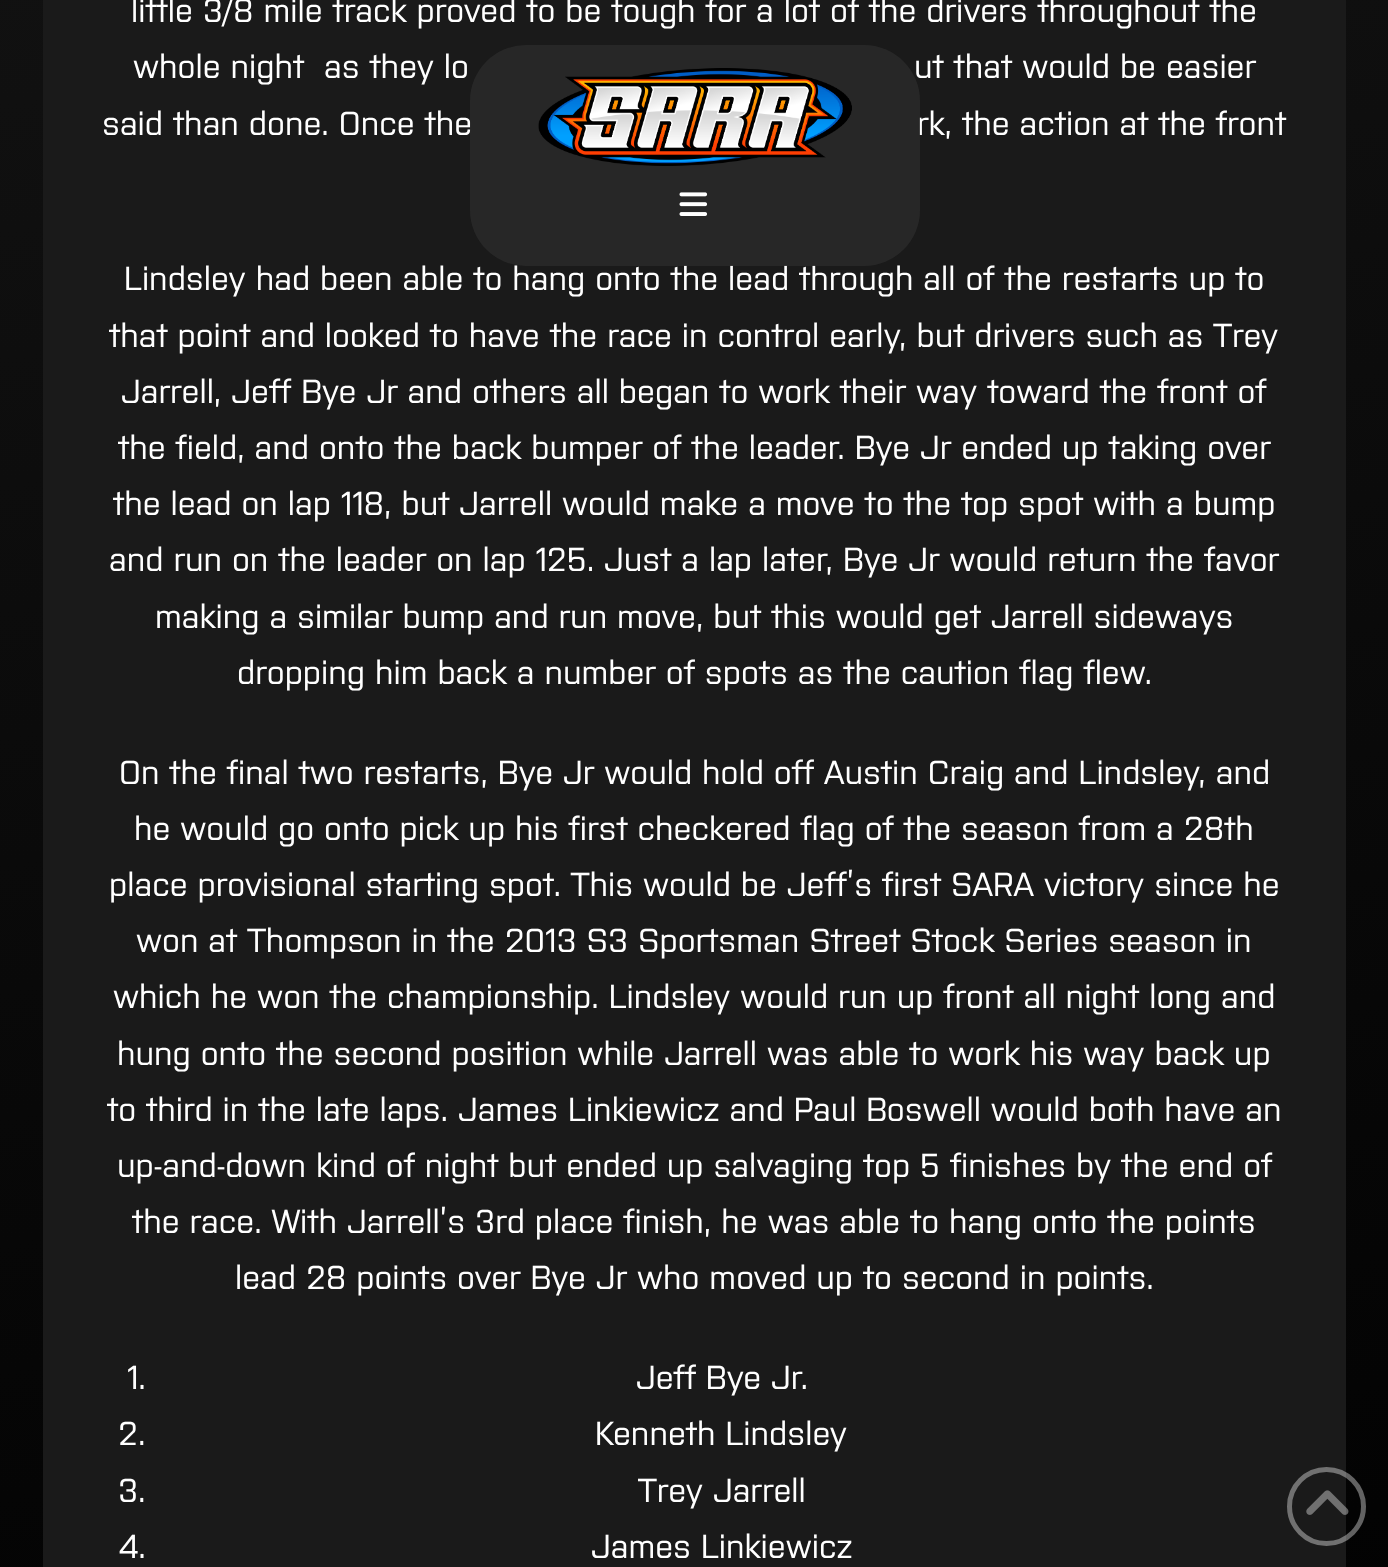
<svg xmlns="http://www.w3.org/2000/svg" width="1388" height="1567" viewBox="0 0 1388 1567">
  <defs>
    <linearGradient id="g1" gradientUnits="userSpaceOnUse" x1="1194" y1="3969" x2="194" y2="-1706"><stop offset="0.35" stop-color="#000000"/><stop offset="1" stop-color="#1e1e1e"/></linearGradient>
  </defs>
  <rect width="100%" height="100%" fill="#ffffff"/>
  <rect x="0" y="0" width="1388" height="1567" fill="url(#g1)"/>
  <rect x="43" y="0" width="1303" height="1567" fill="#1a1a1a"/>
  <text x="131" y="22" font-family="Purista" font-size="33.05" fill="#ffffff">little 3/8 mile track proved to be tough for a lot of the drivers throughout the</text>
  <text x="133" y="78" font-family="Purista" font-size="33.05" fill="#ffffff" xml:space="preserve">whole night  as they lo</text>
  <text x="914" y="78" font-family="Purista" font-size="33.05" fill="#ffffff">ut that would be easier</text>
  <text x="102" y="135" font-family="Purista" font-size="33.05" fill="#ffffff">said than done. Once the</text>
  <text x="917" y="135" font-family="Purista" font-size="33.05" fill="#ffffff">rk, the action at the front</text>
  <text x="124" y="290" font-family="Purista" font-size="33.05" fill="#ffffff">Lindsley had been able to hang onto the lead through all of the restarts up to</text>
  <text x="109" y="347" font-family="Purista" font-size="33.05" fill="#ffffff">that point and looked to have the race in control early, but drivers such as Trey</text>
  <text x="121" y="403" font-family="Purista" font-size="33.05" fill="#ffffff">Jarrell, Jeff Bye Jr and others all began to work their way toward the front of</text>
  <text x="118" y="459" font-family="Purista" font-size="33.05" fill="#ffffff">the field, and onto the back bumper of the leader. Bye Jr ended up taking over</text>
  <text x="113" y="515" font-family="Purista" font-size="33.05" fill="#ffffff">the lead on lap 118, but Jarrell would make a move to the top spot with a bump</text>
  <text x="109" y="571" font-family="Purista" font-size="33.05" fill="#ffffff">and run on the leader on lap 125. Just a lap later, Bye Jr would return the favor</text>
  <text x="155" y="628" font-family="Purista" font-size="33.05" fill="#ffffff">making a similar bump and run move, but this would get Jarrell sideways</text>
  <text x="237" y="684" font-family="Purista" font-size="33.05" fill="#ffffff">dropping him back a number of spots as the caution flag flew.</text>
  <text x="119" y="784" font-family="Purista" font-size="33.05" fill="#ffffff">On the final two restarts, Bye Jr would hold off Austin Craig and Lindsley, and</text>
  <text x="134" y="840" font-family="Purista" font-size="33.05" fill="#ffffff">he would go onto pick up his first checkered flag of the season from a 28th</text>
  <text x="109" y="896" font-family="Purista" font-size="33.05" fill="#ffffff">place provisional starting spot. This would be Jeff’s first SARA victory since he</text>
  <text x="136" y="952" font-family="Purista" font-size="33.05" fill="#ffffff">won at Thompson in the 2013 S3 Sportsman Street Stock Series season in</text>
  <text x="113" y="1008" font-family="Purista" font-size="33.05" fill="#ffffff">which he won the championship. Lindsley would run up front all night long and</text>
  <text x="117" y="1065" font-family="Purista" font-size="33.05" fill="#ffffff">hung onto the second position while Jarrell was able to work his way back up</text>
  <text x="107" y="1121" font-family="Purista" font-size="33.05" fill="#ffffff">to third in the late laps. James Linkiewicz and Paul Boswell would both have an</text>
  <text x="117" y="1177" font-family="Purista" font-size="33.05" fill="#ffffff">up-and-down kind of night but ended up salvaging top 5 finishes by the end of</text>
  <text x="132" y="1233" font-family="Purista" font-size="33.05" fill="#ffffff">the race. With Jarrell’s 3rd place finish, he was able to hang onto the points</text>
  <text x="235" y="1289" font-family="Purista" font-size="33.05" fill="#ffffff">lead 28 points over Bye Jr who moved up to second in points.</text>
  <text x="127" y="1389" font-family="Purista" font-size="33.05" fill="#ffffff">1.</text>
  <text x="636" y="1389" font-family="Purista" font-size="33.05" fill="#ffffff">Jeff Bye Jr.</text>
  <text x="118" y="1445" font-family="Purista" font-size="33.05" fill="#ffffff">2.</text>
  <text x="595" y="1445" font-family="Purista" font-size="33.05" fill="#ffffff">Kenneth Lindsley</text>
  <text x="118" y="1502" font-family="Purista" font-size="33.05" fill="#ffffff">3.</text>
  <text x="638" y="1502" font-family="Purista" font-size="33.05" fill="#ffffff">Trey Jarrell</text>
  <text x="119" y="1558" font-family="Purista" font-size="33.05" fill="#ffffff">4.</text>
  <text x="591" y="1558" font-family="Purista" font-size="33.05" fill="#ffffff">James Linkiewicz</text>
  <rect x="470" y="45" width="450" height="221" rx="56" fill="#2a2a2a" fill-opacity="0.85"/>
  <image x="538" y="68" width="314" height="98" href="img1.png"/>
  <image x="679" y="192" width="29" height="24" href="img2.png"/>
  <circle cx="1326.5" cy="1506.5" r="37" fill="none" stroke="#ffffff" stroke-opacity="0.38" stroke-width="5"/>
  <image x="1306" y="1490" width="43" height="25" href="img3.png"/>
</svg>
